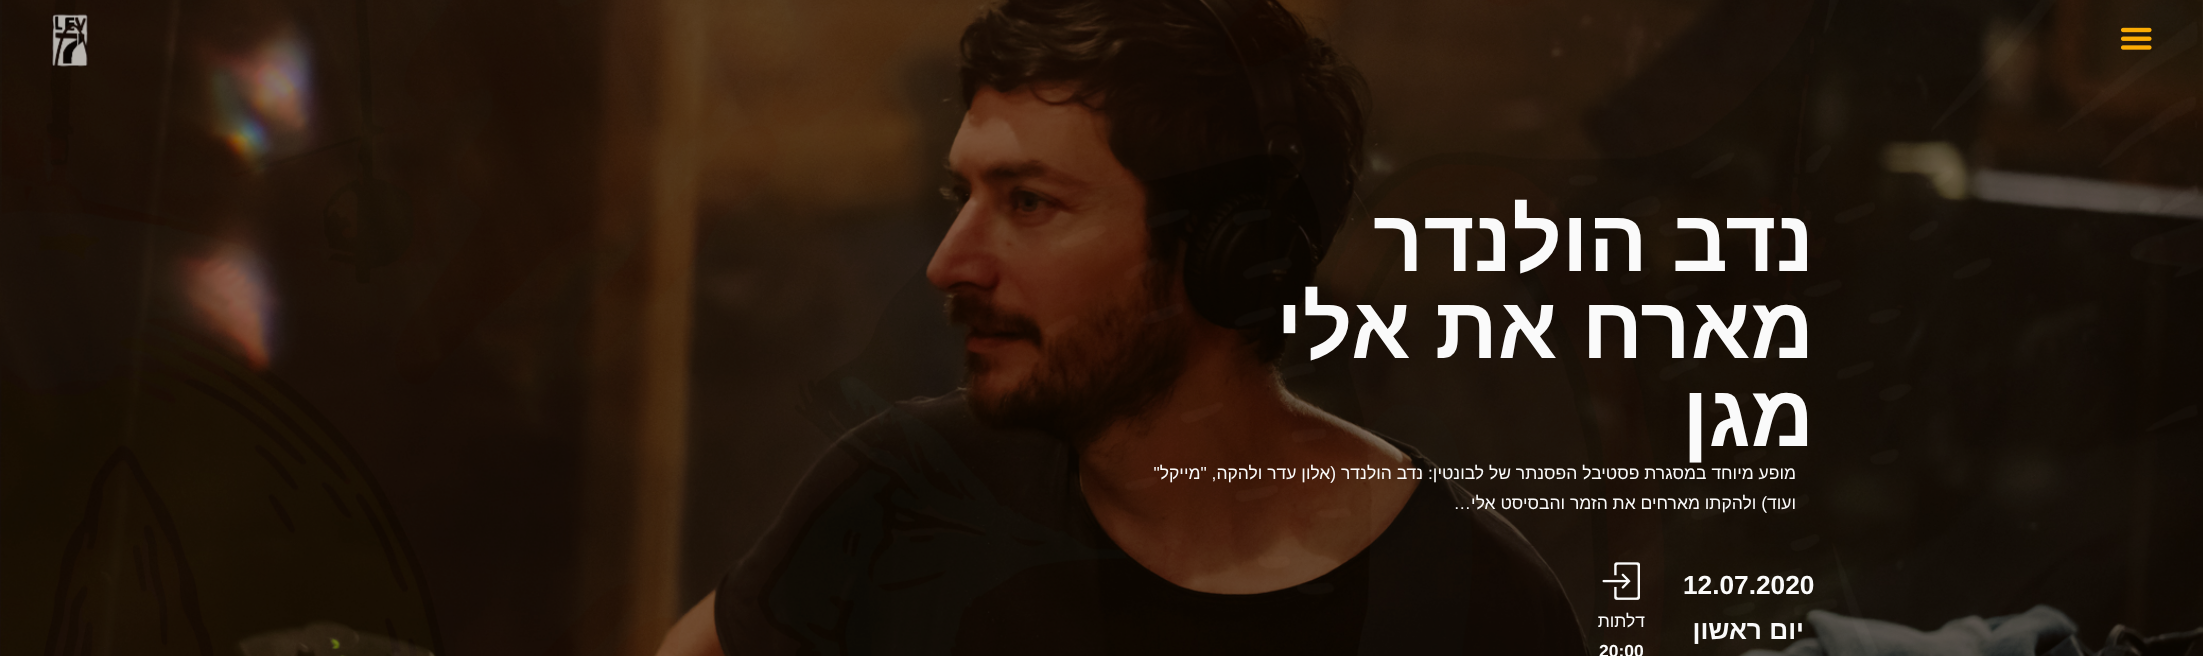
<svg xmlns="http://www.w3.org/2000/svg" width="2203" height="656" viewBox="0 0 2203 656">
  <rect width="100%" height="100%" fill="#ffffff"/>
  <image x="0" y="0" width="2203" height="656" href="img1.png"/>
  <image x="0" y="0" width="2203" height="656" href="img4.png"/>
  <image x="2121" y="27" width="31" height="23" href="img2.png"/>
  <image x="51" y="14" width="38" height="53" href="img3.png"/>
  <text x="1814" y="271" font-family="Liberation Sans" font-size="87.5" font-weight="bold" direction="rtl" fill="#fafafa">נדב הולנדר</text>
  <text x="1814" y="358" font-family="Liberation Sans" font-size="87.5" font-weight="bold" direction="rtl" fill="#fafafa">מארח את אלי</text>
  <text x="1814" y="446" font-family="Liberation Sans" font-size="87.5" font-weight="bold" direction="rtl" fill="#fafafa">מגן</text>
  <text x="1796" y="479" font-family="Liberation Sans" font-size="17.5" direction="rtl" fill="#fafafa">מופע מיוחד במסגרת פסטיבל הפסנתר של לבונטין: נדב הולנדר (אלון עדר ולהקה, "מייקל"</text>
  <text x="1796" y="509" font-family="Liberation Sans" font-size="17.5" direction="rtl" fill="#fafafa">ועוד) ולהקתו מארחים את הזמר והבסיסט אלי…</text>
  <text x="1683" y="594" font-family="Liberation Sans" font-size="26.25" font-weight="bold" fill="#fafafa">12.07.2020</text>
  <text x="1804" y="639" font-family="Liberation Sans" font-size="26.25" font-weight="bold" direction="rtl" fill="#fafafa">יום ראשון</text>
  <image x="1602" y="562" width="38" height="38" href="img5.png"/>
  <text x="1645" y="627" font-family="Liberation Sans" font-size="17.5" direction="rtl" fill="#fafafa">דלתות</text>
  <text x="1599" y="657" font-family="Liberation Sans" font-size="17.5" font-weight="bold" fill="#fafafa">20:00</text>
</svg>
